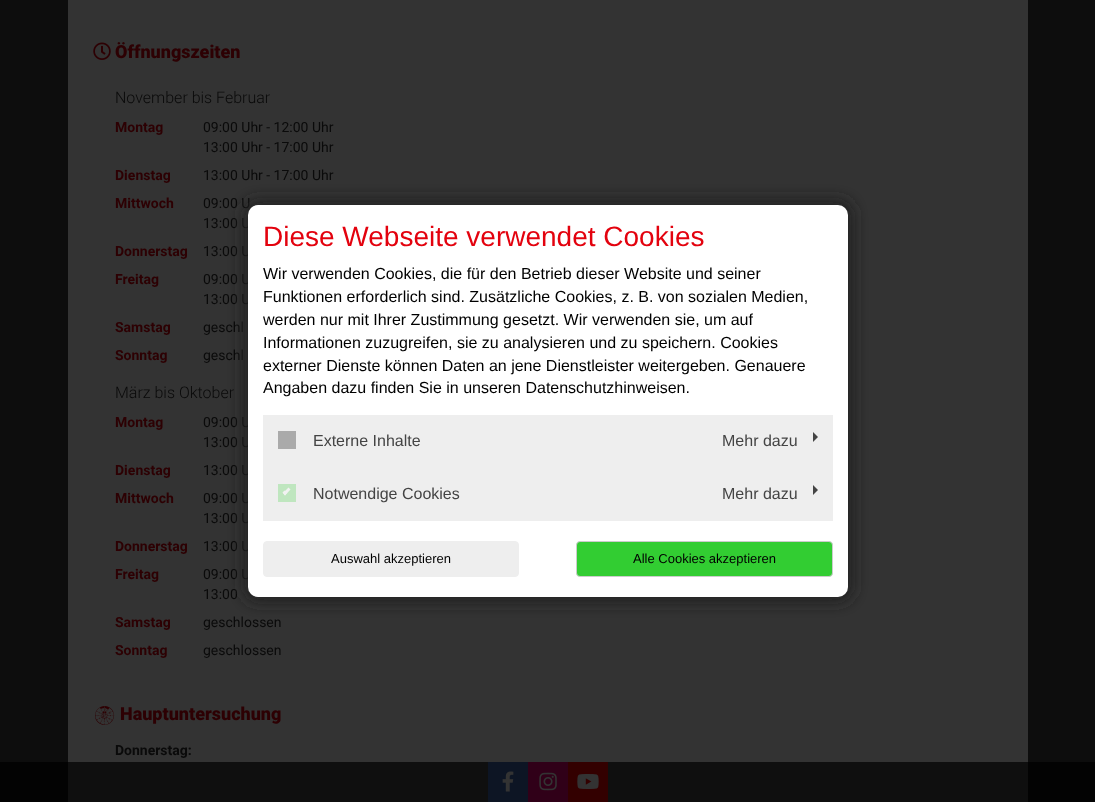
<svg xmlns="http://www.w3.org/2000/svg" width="1095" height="802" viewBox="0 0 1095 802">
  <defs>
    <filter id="blur1" x="-50%" y="-200%" width="200%" height="500%"><feGaussianBlur stdDeviation="7.5"/></filter>
  </defs>
  <rect width="100%" height="100%" fill="#0d0d0d"/>
  <rect x="68" y="0" width="960" height="802" fill="#333333"/>
  <image x="93" y="42" width="18" height="18" href="img1.png"/>
  <text x="115" y="58" font-family="Roboto" font-size="18" font-weight="900" fill="#2d0003">Öffnungszeiten</text>
  <text x="115" y="103" font-family="Roboto" font-size="16" font-weight="300" fill="#0a0a0a">November bis Februar</text>
  <text x="115" y="132" font-family="Roboto" font-size="14" font-weight="bold" fill="#2d0003">Montag</text>
  <text x="203" y="132" font-family="Roboto" font-size="14" fill="#0a0a0a">09:00 Uhr - 12:00 Uhr</text>
  <text x="203" y="152" font-family="Roboto" font-size="14" fill="#0a0a0a">13:00 Uhr - 17:00 Uhr</text>
  <text x="115" y="180" font-family="Roboto" font-size="14" font-weight="bold" fill="#2d0003">Dienstag</text>
  <text x="203" y="180" font-family="Roboto" font-size="14" fill="#0a0a0a">13:00 Uhr - 17:00 Uhr</text>
  <text x="115" y="208" font-family="Roboto" font-size="14" font-weight="bold" fill="#2d0003">Mittwoch</text>
  <text x="203" y="208" font-family="Roboto" font-size="14" fill="#0a0a0a">09:00 U</text>
  <text x="203" y="228" font-family="Roboto" font-size="14" fill="#0a0a0a">13:00 U</text>
  <text x="115" y="256" font-family="Roboto" font-size="14" font-weight="bold" fill="#2d0003">Donnerstag</text>
  <text x="203" y="256" font-family="Roboto" font-size="14" fill="#0a0a0a">13:00 U</text>
  <text x="115" y="284" font-family="Roboto" font-size="14" font-weight="bold" fill="#2d0003">Freitag</text>
  <text x="203" y="284" font-family="Roboto" font-size="14" fill="#0a0a0a">09:00 U</text>
  <text x="203" y="304" font-family="Roboto" font-size="14" fill="#0a0a0a">13:00 U</text>
  <text x="115" y="332" font-family="Roboto" font-size="14" font-weight="bold" fill="#2d0003">Samstag</text>
  <text x="203" y="332" font-family="Roboto" font-size="14" fill="#0a0a0a">geschl</text>
  <text x="115" y="360" font-family="Roboto" font-size="14" font-weight="bold" fill="#2d0003">Sonntag</text>
  <text x="203" y="360" font-family="Roboto" font-size="14" fill="#0a0a0a">geschl</text>
  <text x="115" y="398" font-family="Roboto" font-size="16" font-weight="300" fill="#0a0a0a">März bis Oktober</text>
  <text x="115" y="427" font-family="Roboto" font-size="14" font-weight="bold" fill="#2d0003">Montag</text>
  <text x="203" y="427" font-family="Roboto" font-size="14" fill="#0a0a0a">09:00 U</text>
  <text x="203" y="447" font-family="Roboto" font-size="14" fill="#0a0a0a">13:00 U</text>
  <text x="115" y="475" font-family="Roboto" font-size="14" font-weight="bold" fill="#2d0003">Dienstag</text>
  <text x="203" y="475" font-family="Roboto" font-size="14" fill="#0a0a0a">13:00 U</text>
  <text x="115" y="503" font-family="Roboto" font-size="14" font-weight="bold" fill="#2d0003">Mittwoch</text>
  <text x="203" y="503" font-family="Roboto" font-size="14" fill="#0a0a0a">09:00 U</text>
  <text x="203" y="523" font-family="Roboto" font-size="14" fill="#0a0a0a">13:00 U</text>
  <text x="115" y="551" font-family="Roboto" font-size="14" font-weight="bold" fill="#2d0003">Donnerstag</text>
  <text x="203" y="551" font-family="Roboto" font-size="14" fill="#0a0a0a">13:00 U</text>
  <text x="115" y="579" font-family="Roboto" font-size="14" font-weight="bold" fill="#2d0003">Freitag</text>
  <text x="203" y="579" font-family="Roboto" font-size="14" fill="#0a0a0a">09:00 U</text>
  <text x="203" y="599" font-family="Roboto" font-size="14" fill="#0a0a0a">13:00</text>
  <text x="115" y="627" font-family="Roboto" font-size="14" font-weight="bold" fill="#2d0003">Samstag</text>
  <text x="203" y="627" font-family="Roboto" font-size="14" fill="#0a0a0a">geschlossen</text>
  <text x="115" y="655" font-family="Roboto" font-size="14" font-weight="bold" fill="#2d0003">Sonntag</text>
  <text x="203" y="655" font-family="Roboto" font-size="14" fill="#0a0a0a">geschlossen</text>
  <image x="95" y="706" width="20" height="19" href="img2.png"/>
  <text x="120" y="720" font-family="Roboto" font-size="18" font-weight="900" fill="#2d0003">Hauptuntersuchung</text>
  <text x="115" y="755" font-family="Roboto" font-size="14" font-weight="bold" fill="#0a0a0a">Donnerstag:</text>
  <rect x="0" y="762" width="1095" height="40" fill="#000000" fill-opacity="0.7"/>
  <rect x="488" y="762" width="40" height="40" fill="#0d1524"/>
  <image x="502" y="771" width="12" height="21" href="img3.png"/>
  <rect x="528" y="762" width="40" height="40" fill="#300018"/>
  <image x="539" y="772" width="18" height="19" href="img4.png"/>
  <rect x="568" y="762" width="40" height="40" fill="#330000"/>
  <image x="577" y="774" width="22" height="15" href="img5.png"/>
  <rect x="243" y="200" width="610" height="402" rx="15" fill="#222222" filter="url(#blur1)"/>
  <rect x="248" y="205" width="600" height="392" rx="10" fill="#ffffff"/>
  <text x="263" y="246" font-family="Liberation Sans" font-size="28" fill="#e3020e">Diese Webseite verwendet Cookies</text>
  <text x="263" y="279" font-family="Liberation Sans" font-size="16" fill="#000000">Wir verwenden Cookies, die für den Betrieb dieser Website und seiner</text>
  <text x="263" y="302" font-family="Liberation Sans" font-size="16" fill="#000000">Funktionen erforderlich sind. Zusätzliche Cookies, z. B. von sozialen Medien,</text>
  <text x="263" y="325" font-family="Liberation Sans" font-size="16" fill="#000000">werden nur mit Ihrer Zustimmung gesetzt. Wir verwenden sie, um auf</text>
  <text x="263" y="348" font-family="Liberation Sans" font-size="16" fill="#000000">Informationen zuzugreifen, sie zu analysieren und zu speichern. Cookies</text>
  <text x="263" y="371" font-family="Liberation Sans" font-size="16" fill="#000000">externer Dienste können Daten an jene Dienstleister weitergeben. Genauere</text>
  <text x="263" y="393" font-family="Liberation Sans" font-size="16" fill="#000000">Angaben dazu finden Sie in unseren Datenschutzhinweisen.</text>
  <rect x="263" y="415" width="570" height="106" fill="#eeeeee"/>
  <rect x="278" y="431" width="18" height="18" fill="#aaaaaa"/>
  <text x="313" y="446" font-family="Liberation Sans" font-size="16" fill="#444444">Externe Inhalte</text>
  <text x="722" y="446" font-family="Liberation Sans" font-size="16" fill="#444444">Mehr dazu</text>
  <path d="M813 442V432L818 437Z" fill="#444444"/>
  <rect x="278" y="484" width="18" height="18" fill="#bfe6bf"/>
  <path d="M288.5 487.5L290.5 489.5L285 495.5L283 493Z" fill="#f2f2f2"/>
  <path d="M284.5 490.5L287 493L285 495.5L282.5 492.5Z" fill="#f2f2f2"/>
  <text x="313" y="499" font-family="Liberation Sans" font-size="16" fill="#444444">Notwendige Cookies</text>
  <text x="722" y="499" font-family="Liberation Sans" font-size="16" fill="#444444">Mehr dazu</text>
  <path d="M813 495V485L818 490Z" fill="#444444"/>
  <rect x="263.5" y="541.5" width="255" height="35" rx="3.5" fill="#eeeeee" stroke="#eeeeee"/>
  <text x="331" y="563" font-family="Liberation Sans" font-size="13" fill="#000000">Auswahl akzeptieren</text>
  <rect x="576.5" y="541.5" width="256" height="35" rx="3.5" fill="#32cd32" stroke="#cccccc"/>
  <text x="633" y="563" font-family="Liberation Sans" font-size="13" fill="#000000">Alle Cookies akzeptieren</text>
</svg>
